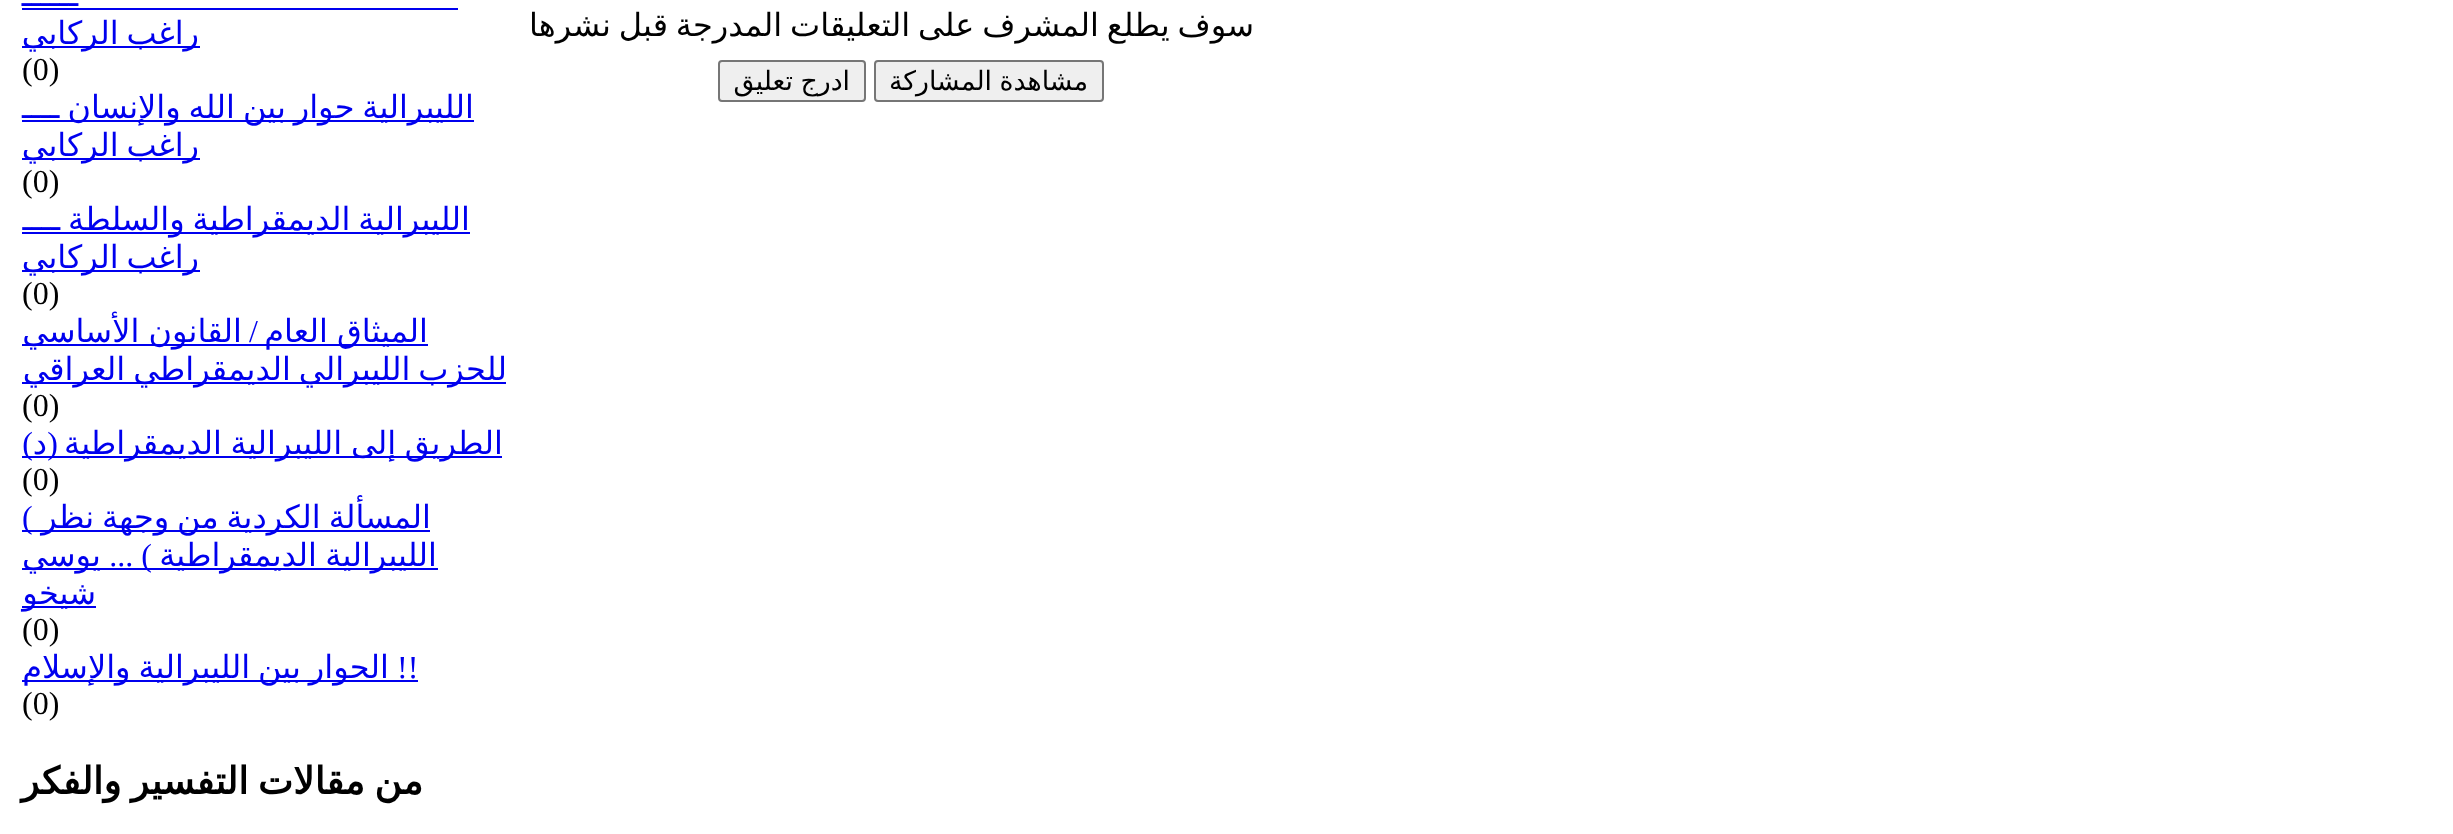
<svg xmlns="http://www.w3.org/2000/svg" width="2453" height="834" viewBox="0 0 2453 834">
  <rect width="100%" height="100%" fill="#ffffff"/>
  <text x="1254" y="36" word-spacing="-2.25" font-family="DejaVu Sans" font-size="32" direction="rtl" fill="#000000">سوف يطلع المشرف على التعليقات المدرجة قبل نشرها</text>
  <rect x="875" y="61" width="228" height="40" rx="3" fill="#efefef" stroke="#767676" stroke-width="2"/>
  <text x="1088" y="90" word-spacing="-1" font-family="DejaVu Sans" font-size="26.75" direction="rtl" fill="#000000">مشاهدة المشاركة</text>
  <rect x="719" y="61" width="146" height="40" rx="3" fill="#efefef" stroke="#767676" stroke-width="2"/>
  <text x="850" y="90" word-spacing="-1" font-family="DejaVu Sans" font-size="26.75" direction="rtl" fill="#000000">ادرج تعليق</text>
  <text x="78" y="6" font-family="DejaVu Sans" font-size="32" direction="rtl" fill="#0000ee">ــــــ</text>
  <rect x="22" y="8" width="436" height="2" fill="#0000ee"/>
  <rect x="22" y="46" width="178" height="2" fill="#0000ee"/>
  <text x="199" y="44" word-spacing="-2.25" font-family="DejaVu Sans" font-size="32" direction="rtl" fill="#0000ee">راغب الركابي</text>
  <text x="22" y="80" font-family="Liberation Serif" font-size="32" fill="#000000">(0)</text>
  <rect x="22" y="120" width="452" height="2" fill="#0000ee"/>
  <text x="474" y="118" word-spacing="-2.25" font-family="DejaVu Sans" font-size="32" direction="rtl" fill="#0000ee">الليبرالية حوار بين الله والإنسان ــــ</text>
  <rect x="22" y="158" width="178" height="2" fill="#0000ee"/>
  <text x="199" y="156" word-spacing="-2.25" font-family="DejaVu Sans" font-size="32" direction="rtl" fill="#0000ee">راغب الركابي</text>
  <text x="22" y="192" font-family="Liberation Serif" font-size="32" fill="#000000">(0)</text>
  <rect x="22" y="232" width="448" height="2" fill="#0000ee"/>
  <text x="470" y="230" word-spacing="-2.25" font-family="DejaVu Sans" font-size="32" direction="rtl" fill="#0000ee">الليبرالية الديمقراطية والسلطة ــــ</text>
  <rect x="22" y="270" width="178" height="2" fill="#0000ee"/>
  <text x="199" y="268" word-spacing="-2.25" font-family="DejaVu Sans" font-size="32" direction="rtl" fill="#0000ee">راغب الركابي</text>
  <text x="22" y="304" font-family="Liberation Serif" font-size="32" fill="#000000">(0)</text>
  <rect x="22" y="344" width="406" height="2" fill="#0000ee"/>
  <text x="428" y="342" word-spacing="-1" font-family="DejaVu Sans" font-size="32" direction="rtl" fill="#0000ee">الميثاق العام</text>
  <text x="258" y="342" font-family="Liberation Serif" font-size="32" direction="rtl" fill="#0000ee">/</text>
  <text x="242" y="342" word-spacing="-1" font-family="DejaVu Sans" font-size="32" direction="rtl" fill="#0000ee">القانون الأساسي</text>
  <rect x="22" y="382" width="484" height="2" fill="#0000ee"/>
  <text x="507" y="380" word-spacing="-2.25" font-family="DejaVu Sans" font-size="32" direction="rtl" fill="#0000ee">للحزب الليبرالي الديمقراطي العراقي</text>
  <text x="22" y="416" font-family="Liberation Serif" font-size="32" fill="#000000">(0)</text>
  <rect x="22" y="456" width="480" height="2" fill="#0000ee"/>
  <text x="503" y="454" word-spacing="-1.5" font-family="DejaVu Sans" font-size="32" direction="rtl" fill="#0000ee">الطريق إلى الليبرالية الديمقراطية</text>
  <text x="58" y="454" font-family="Liberation Serif" font-size="32" direction="rtl" fill="#0000ee">(</text>
  <text x="47" y="454" font-family="DejaVu Sans" font-size="32" direction="rtl" fill="#0000ee">د</text>
  <text x="33" y="454" font-family="Liberation Serif" font-size="32" direction="rtl" fill="#0000ee">)</text>
  <text x="22" y="490" font-family="Liberation Serif" font-size="32" fill="#000000">(0)</text>
  <rect x="22" y="530" width="408" height="2" fill="#0000ee"/>
  <text x="431" y="528" word-spacing="-2.25" font-family="DejaVu Sans" font-size="32" direction="rtl" fill="#0000ee">المسألة الكردية من وجهة نظر</text>
  <text x="22" y="528" font-family="Liberation Serif" font-size="32" fill="#0000ee">(</text>
  <rect x="22" y="568" width="416" height="2" fill="#0000ee"/>
  <text x="437" y="566" font-family="DejaVu Sans" font-size="32" direction="rtl" fill="#0000ee">الليبرالية</text>
  <text x="317" y="566" font-family="DejaVu Sans" font-size="32" direction="rtl" fill="#0000ee">الديمقراطية</text>
  <text x="152" y="566" font-family="Liberation Serif" font-size="32" direction="rtl" fill="#0000ee">) ...</text>
  <text x="101" y="566" font-family="DejaVu Sans" font-size="32" direction="rtl" fill="#0000ee">يوسي</text>
  <rect x="22" y="606" width="74" height="2" fill="#0000ee"/>
  <text x="96" y="604" font-family="DejaVu Sans" font-size="32" direction="rtl" fill="#0000ee">شيخو</text>
  <text x="22" y="640" font-family="Liberation Serif" font-size="32" fill="#000000">(0)</text>
  <text x="397" y="678" font-family="Liberation Serif" font-size="32" fill="#0000ee">!!</text>
  <rect x="22" y="680" width="368" height="2" fill="#0000ee"/>
  <text x="389" y="678" word-spacing="-2.25" font-family="DejaVu Sans" font-size="32" direction="rtl" fill="#0000ee">الحوار بين الليبرالية والإسلام</text>
  <rect x="390" y="680" width="28" height="2" fill="#0000ee"/>
  <text x="22" y="714" font-family="Liberation Serif" font-size="32" fill="#000000">(0)</text>
  <text x="423" y="794" word-spacing="-2.5" font-family="DejaVu Sans" font-size="37.5" font-weight="bold" direction="rtl" fill="#000000">من مقالات التفسير والفكر</text>
</svg>
